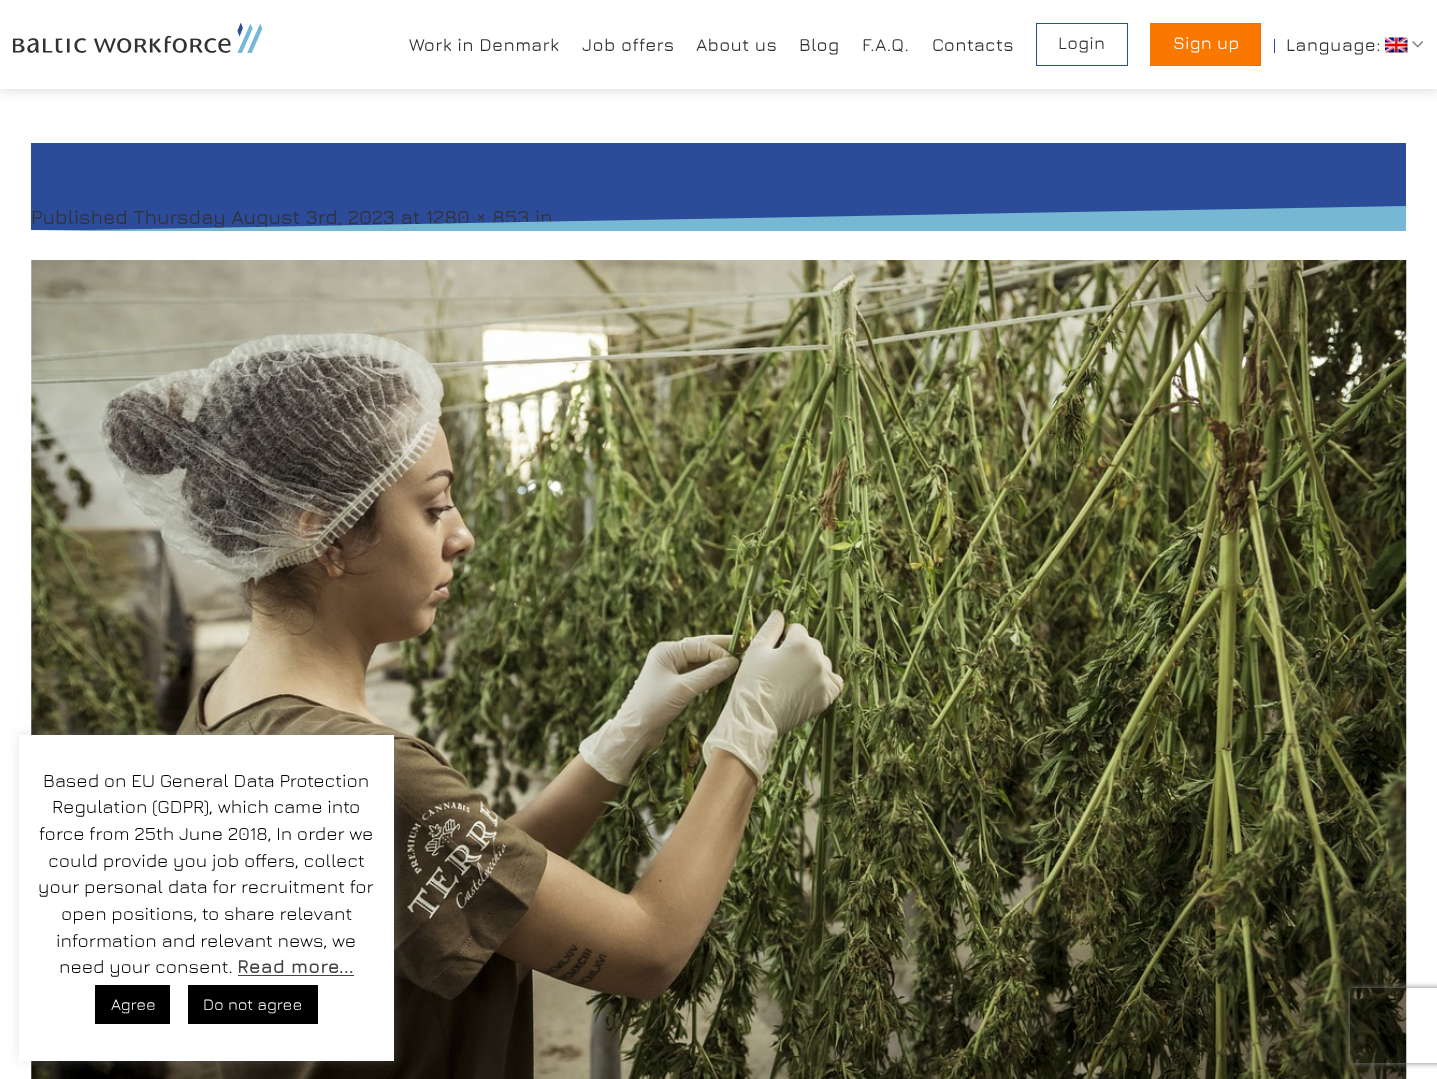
<svg xmlns="http://www.w3.org/2000/svg" width="1437" height="1079" viewBox="0 0 1437 1079">
  <defs>
    <filter id="blur1" x="-50%" y="-200%" width="200%" height="500%"><feGaussianBlur stdDeviation="6"/></filter>
    <clipPath id="clip1"><path d="M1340 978H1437V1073H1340ZM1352.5 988H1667.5C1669 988 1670 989 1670 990.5V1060.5C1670 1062 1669 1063 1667.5 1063H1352.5C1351 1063 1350 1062 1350 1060.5V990.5C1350 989 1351 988 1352.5 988Z" clip-rule="evenodd"/></clipPath>
    <filter id="blur2" x="-50%" y="-200%" width="200%" height="500%"><feGaussianBlur stdDeviation="3"/></filter>
  </defs>
  <rect width="100%" height="100%" fill="#ffffff"/>
  <rect x="1" y="1" width="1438" height="89" fill="#000000" fill-opacity="0.15" filter="url(#blur1)"/>
  <rect x="0" y="0" width="1437" height="89" fill="#ffffff"/>
  <image x="13" y="23" width="250" height="30" href="img1.png"/>
  <text x="409" y="51" font-family="Jura" font-size="18" font-weight="500" letter-spacing="0.4" fill="#313234">Work in Denmark</text>
  <text x="582" y="51" font-family="Jura" font-size="18" font-weight="500" letter-spacing="0.4" fill="#313234">Job offers</text>
  <text x="696" y="51" font-family="Jura" font-size="18" font-weight="500" letter-spacing="0.4" fill="#313234">About us</text>
  <text x="799" y="51" font-family="Jura" font-size="18" font-weight="500" letter-spacing="0.4" fill="#313234">Blog</text>
  <text x="862" y="51" font-family="Jura" font-size="18" font-weight="500" letter-spacing="0.4" fill="#313234">F.A.Q.</text>
  <text x="932" y="51" font-family="Jura" font-size="18" font-weight="500" letter-spacing="0.4" fill="#313234">Contacts</text>
  <rect x="1036.5" y="23.5" width="91" height="42" fill="none" stroke="#2c4b98"/>
  <text x="1058" y="49" font-family="Jura" font-size="17.5" font-weight="500" letter-spacing="0.25" fill="#313234">Login</text>
  <rect x="1150.5" y="23.5" width="110" height="42" fill="#fa7700" stroke="#ee7100"/>
  <text x="1173" y="49" font-family="Jura" font-size="17.5" font-weight="500" letter-spacing="0.25" fill="#ffffff">Sign up</text>
  <rect x="1274" y="39" width="1" height="14" fill="#2c4b98"/>
  <text x="1286" y="51" font-family="Jura" font-size="18" font-weight="500" letter-spacing="0.4" fill="#313234">Language:</text>
  <image x="1385" y="37" width="23" height="16" href="img2.png"/>
  <image x="1412" y="41" width="12" height="7" href="img3.png"/>
  <rect x="31" y="143" width="1375" height="87" fill="#2c4b98"/>
  <text x="31" y="224" font-family="Jura" font-size="20" font-weight="500" fill="#313234">Published Thursday August 3rd, 2023 at 1280 × 853 in</text>
  <path d="M1406 231V206L31 231Z" fill="#76b8d4"/>
  <image x="31" y="260" width="1376" height="819" href="img4.png"/>
  <rect x="19" y="734" width="375" height="326" fill="#acabab" fill-opacity="0.3" filter="url(#blur1)"/>
  <rect x="19" y="735" width="375" height="326" fill="#ffffff"/>
  <text x="43" y="787" font-family="Jura" font-size="18.75" fill="#000000">Based on EU General Data Protection</text>
  <text x="52" y="813" font-family="Jura" font-size="18.75" fill="#000000">Regulation (GDPR), which came into</text>
  <text x="39" y="840" font-family="Jura" font-size="18.75" fill="#000000">force from 25th June 2018, In order we</text>
  <text x="48" y="867" font-family="Jura" font-size="18.75" fill="#000000">could provide you job offers, collect</text>
  <text x="38" y="893" font-family="Jura" font-size="18.75" fill="#000000">your personal data for recruitment for</text>
  <text x="61" y="920" font-family="Jura" font-size="18.75" fill="#000000">open positions, to share relevant</text>
  <text x="56" y="947" font-family="Jura" font-size="18.75" fill="#000000">information and relevant news, we</text>
  <text x="59" y="973" font-family="Jura" font-size="18.75" fill="#000000">need your consent.</text>
  <text x="237" y="973" font-family="Jura" font-size="18.75" font-weight="bold" fill="#444444">Read more...</text>
  <rect x="238" y="975" width="116" height="1" fill="#444444"/>
  <rect x="95" y="985" width="75" height="39" fill="#000000"/>
  <text x="111" y="1010" font-family="Jura" font-size="16.25" fill="#ffffff">Agree</text>
  <rect x="188" y="985" width="130" height="39" fill="#000000"/>
  <text x="203" y="1010" font-family="Jura" font-size="16.25" fill="#ffffff">Do not agree</text>
  <g clip-path="url(#clip1)">
    <rect x="1350" y="988" width="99" height="75" rx="2.5" fill="#808080" filter="url(#blur2)"/>
  </g>
</svg>
